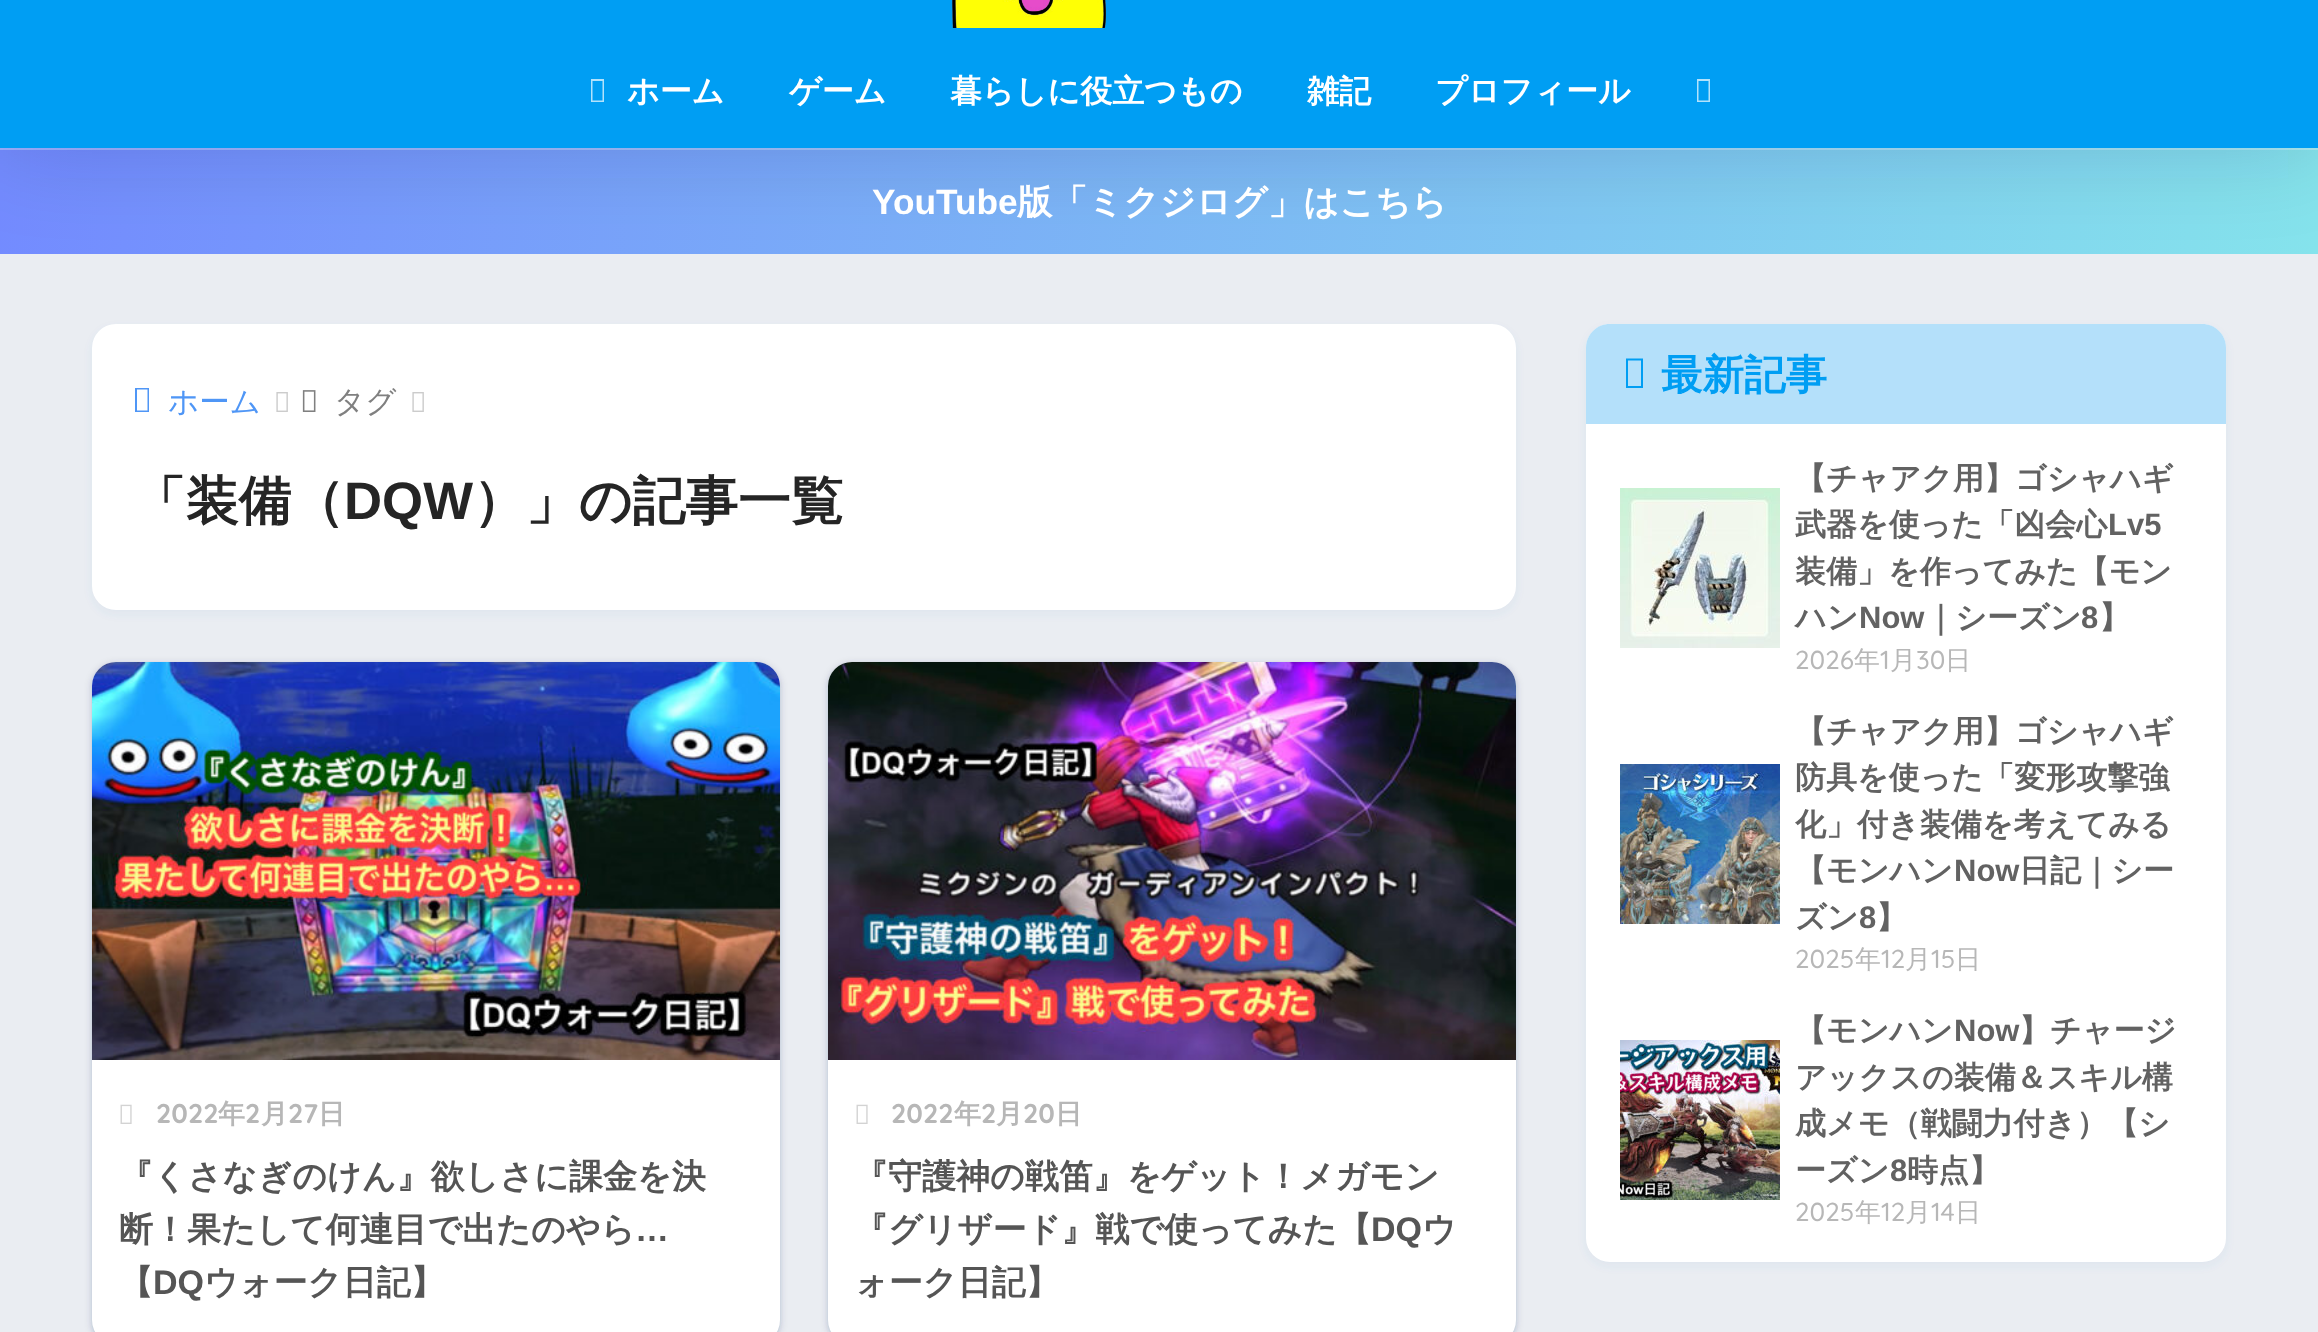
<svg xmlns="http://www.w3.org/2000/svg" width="2318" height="1332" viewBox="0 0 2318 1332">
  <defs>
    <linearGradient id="g1" gradientUnits="userSpaceOnUse" x1="4.3" y1="-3" x2="2314" y2="199"><stop offset="0" stop-color="#9daeff"/><stop offset="1" stop-color="#aaebf2"/></linearGradient>
    <linearGradient id="g2" gradientUnits="userSpaceOnUse" x1="4.3" y1="101" x2="2314" y2="303"><stop offset="0" stop-color="#738bff"/><stop offset="1" stop-color="#85e3ec"/></linearGradient>
    <filter id="blur1" x="-50%" y="-200%" width="200%" height="500%"><feGaussianBlur stdDeviation="45"/></filter>
    <filter id="blur2" x="-50%" y="-200%" width="200%" height="500%"><feGaussianBlur stdDeviation="4"/></filter>
    <filter id="blur3" x="-50%" y="-200%" width="200%" height="500%"><feGaussianBlur stdDeviation="3"/></filter>
    <filter id="blur4" x="-50%" y="-200%" width="200%" height="500%"><feGaussianBlur stdDeviation="2"/></filter>
  </defs>
  <rect width="100%" height="100%" fill="#eaedf2"/>
  <rect x="0" y="148" width="2318" height="2" fill="url(#g1)"/>
  <rect x="0" y="150" width="2318" height="104" fill="url(#g2)"/>
  <rect x="0" y="-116" width="2318" height="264" fill="#000c42" fill-opacity="0.16" filter="url(#blur1)"/>
  <rect x="0" y="0" width="2318" height="148" fill="#009ef3"/>
  <image x="952" y="0" width="154" height="28" href="img1.png"/>
  <path d="M591 102V79H604V102ZM592.5 100.5H602.5V81H592.5Z" fill="#b3e2fb"/>
  <text x="627" y="102" font-family="WenQuanYi Zen Hei" font-size="32" font-weight="bold" fill="#ffffff">ホーム</text>
  <text x="789" y="102" font-family="WenQuanYi Zen Hei" font-size="32" font-weight="bold" fill="#ffffff">ゲーム</text>
  <text x="950" y="102" font-family="WenQuanYi Zen Hei" font-size="32" font-weight="bold" fill="#ffffff">暮らしに役立つもの</text>
  <text x="1307" y="102" font-family="WenQuanYi Zen Hei" font-size="32" font-weight="bold" fill="#ffffff">雑記</text>
  <text x="1435" y="102" font-family="WenQuanYi Zen Hei" font-size="32" font-weight="bold" fill="#ffffff">プロフィール</text>
  <path d="M1697 102V79H1710V102ZM1698.5 100.5H1708.5V81H1698.5Z" fill="#b3e2fb"/>
  <text x="872" y="214" font-family="Liberation Sans" font-size="35.25" font-weight="bold" fill="#ffffff">YouTube</text>
  <text x="1017" y="214" font-family="WenQuanYi Zen Hei" font-size="35.25" font-weight="bold" fill="#ffffff">版「ミクジログ」はこちら</text>
  <rect x="92" y="328" width="1424" height="286" rx="24" fill="#4385bb" fill-opacity="0.07" filter="url(#blur2)"/>
  <rect x="92" y="324" width="1424" height="286" rx="24" fill="#ffffff"/>
  <text x="168" y="412" font-family="WenQuanYi Zen Hei" font-size="30.5" font-weight="500" fill="#4f96f6">ホーム</text>
  <path d="M135 412V388H149V412ZM137 410.5H147.5V389.5H137Z" fill="#4f96f6"/>
  <image x="276" y="392" width="12" height="20" href="img2.png"/>
  <image x="302" y="390" width="14" height="22" href="img3.png"/>
  <text x="334" y="412" font-family="WenQuanYi Zen Hei" font-size="30.5" font-weight="500" fill="#808080">タグ</text>
  <image x="412" y="392" width="12" height="20" href="img2.png"/>
  <text x="133" y="519" font-family="WenQuanYi Zen Hei" font-size="52.75" font-weight="bold" fill="#252525">「装備（</text>
  <text x="344" y="519" font-family="Liberation Sans" font-size="52.75" font-weight="bold" fill="#252525">DQW</text>
  <text x="473" y="519" font-family="WenQuanYi Zen Hei" font-size="52.75" font-weight="bold" fill="#252525">）」の記事一覧</text>
  <rect x="90" y="662" width="692" height="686" rx="26" fill="#182c54" fill-opacity="0.1" filter="url(#blur3)"/>
  <rect x="92" y="664" width="688" height="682" rx="24" fill="#182c54" fill-opacity="0.1" filter="url(#blur4)"/>
  <rect x="92" y="662" width="688" height="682" rx="24" fill="#ffffff"/>
  <image x="92" y="662" width="688" height="398" href="img4.png"/>
  <image x="120" y="1104" width="12" height="20" href="img5.png"/>
  <text x="156" y="1123" font-family="Quicksand" font-size="27" font-weight="bold" fill="#b7b7b7">2022</text>
  <text x="218" y="1123" font-family="WenQuanYi Zen Hei" font-size="27" font-weight="bold" fill="#b7b7b7">年</text>
  <text x="245" y="1123" font-family="Quicksand" font-size="27" font-weight="bold" fill="#b7b7b7">2</text>
  <text x="261" y="1123" font-family="WenQuanYi Zen Hei" font-size="27" font-weight="bold" fill="#b7b7b7">月</text>
  <text x="288" y="1123" font-family="Quicksand" font-size="27" font-weight="bold" fill="#b7b7b7">27</text>
  <text x="318" y="1123" font-family="WenQuanYi Zen Hei" font-size="27" font-weight="bold" fill="#b7b7b7">日</text>
  <text x="119" y="1188" font-family="WenQuanYi Zen Hei" font-size="34" font-weight="bold" fill="#555555">『くさなぎのけん』欲しさに課金を決</text>
  <text x="119" y="1241" font-family="WenQuanYi Zen Hei" font-size="34" font-weight="bold" fill="#555555">断！果たして何連目で出たのやら</text>
  <text x="635" y="1241" font-family="Liberation Sans" font-size="34" font-weight="bold" fill="#555555">…</text>
  <text x="119" y="1294" font-family="WenQuanYi Zen Hei" font-size="34" font-weight="bold" fill="#555555">【</text>
  <text x="153" y="1294" font-family="Liberation Sans" font-size="34" font-weight="bold" fill="#555555">DQ</text>
  <text x="204" y="1294" font-family="WenQuanYi Zen Hei" font-size="34" font-weight="bold" fill="#555555">ウォーク日記】</text>
  <rect x="826" y="662" width="692" height="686" rx="26" fill="#182c54" fill-opacity="0.1" filter="url(#blur3)"/>
  <rect x="828" y="664" width="688" height="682" rx="24" fill="#182c54" fill-opacity="0.1" filter="url(#blur4)"/>
  <rect x="828" y="662" width="688" height="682" rx="24" fill="#ffffff"/>
  <image x="828" y="662" width="688" height="398" href="img6.png"/>
  <image x="856" y="1104" width="12" height="20" href="img5.png"/>
  <text x="891" y="1123" font-family="Quicksand" font-size="27" font-weight="bold" fill="#b7b7b7">2022</text>
  <text x="954" y="1123" font-family="WenQuanYi Zen Hei" font-size="27" font-weight="bold" fill="#b7b7b7">年</text>
  <text x="981" y="1123" font-family="Quicksand" font-size="27" font-weight="bold" fill="#b7b7b7">2</text>
  <text x="996" y="1123" font-family="WenQuanYi Zen Hei" font-size="27" font-weight="bold" fill="#b7b7b7">月</text>
  <text x="1023" y="1123" font-family="Quicksand" font-size="27" font-weight="bold" fill="#b7b7b7">20</text>
  <text x="1055" y="1123" font-family="WenQuanYi Zen Hei" font-size="27" font-weight="bold" fill="#b7b7b7">日</text>
  <text x="854" y="1188" font-family="WenQuanYi Zen Hei" font-size="34" font-weight="bold" fill="#555555">『守護神の戦笛』をゲット！メガモン</text>
  <text x="854" y="1241" font-family="WenQuanYi Zen Hei" font-size="34" font-weight="bold" fill="#555555">『グリザード』戦で使ってみた【</text>
  <text x="1371" y="1241" font-family="Liberation Sans" font-size="34" font-weight="bold" fill="#555555">DQ</text>
  <text x="1422" y="1241" font-family="WenQuanYi Zen Hei" font-size="34" font-weight="bold" fill="#555555">ウ</text>
  <text x="854" y="1294" font-family="WenQuanYi Zen Hei" font-size="34" font-weight="bold" fill="#555555">ォーク日記】</text>
  <rect x="1586" y="328" width="640" height="938" rx="24" fill="#4385bb" fill-opacity="0.07" filter="url(#blur2)"/>
  <rect x="1586" y="324" width="640" height="938" rx="24" fill="#ffffff"/>
  <path d="M1610 324H2202C2215.5 324 2226 334.5 2226 348V424H1586V348C1586 334.5 1596.5 324 1610 324Z" fill="#b4e0fa"/>
  <path d="M1626 388V358.5H1643V388ZM1628 386H1641V360.5H1628Z" fill="#009ef3"/>
  <text x="1661" y="389" font-family="WenQuanYi Zen Hei" font-size="41.5" font-weight="bold" fill="#009ef3">最新記事</text>
  <image x="1620" y="488" width="160" height="160" href="img7.png"/>
  <text x="1795" y="489" font-family="WenQuanYi Zen Hei" font-size="31" font-weight="bold" fill="#626262">【チャアク用】ゴシャハギ</text>
  <text x="1795" y="535" font-family="WenQuanYi Zen Hei" font-size="31" font-weight="bold" fill="#626262">武器を使った「凶会心</text>
  <text x="2108" y="535" font-family="Liberation Sans" font-size="31" font-weight="bold" fill="#626262">Lv5</text>
  <text x="1795" y="582" font-family="WenQuanYi Zen Hei" font-size="31" font-weight="bold" fill="#626262">装備」を作ってみた【モン</text>
  <text x="1795" y="628" font-family="WenQuanYi Zen Hei" font-size="31" font-weight="bold" fill="#626262">ハン</text>
  <text x="1859" y="628" font-family="Liberation Sans" font-size="31" font-weight="bold" fill="#626262">Now</text>
  <text x="1925" y="628" font-family="WenQuanYi Zen Hei" font-size="31" font-weight="bold" fill="#626262">｜シーズン</text>
  <text x="2081" y="628" font-family="Liberation Sans" font-size="31" font-weight="bold" fill="#626262">8</text>
  <text x="2099" y="628" font-family="WenQuanYi Zen Hei" font-size="31" font-weight="bold" fill="#626262">】</text>
  <text x="1795" y="669" font-family="Quicksand" font-size="26" font-weight="500" fill="#b7b7b7">2026</text>
  <text x="1854" y="669" font-family="WenQuanYi Zen Hei" font-size="26" font-weight="500" fill="#b7b7b7">年</text>
  <text x="1880" y="669" font-family="Quicksand" font-size="26" font-weight="500" fill="#b7b7b7">1</text>
  <text x="1890" y="669" font-family="WenQuanYi Zen Hei" font-size="26" font-weight="500" fill="#b7b7b7">月</text>
  <text x="1916" y="669" font-family="Quicksand" font-size="26" font-weight="500" fill="#b7b7b7">30</text>
  <text x="1945" y="669" font-family="WenQuanYi Zen Hei" font-size="26" font-weight="500" fill="#b7b7b7">日</text>
  <image x="1620" y="764" width="160" height="160" href="img8.png"/>
  <text x="1795" y="742" font-family="WenQuanYi Zen Hei" font-size="31" font-weight="bold" fill="#626262">【チャアク用】ゴシャハギ</text>
  <text x="1795" y="788" font-family="WenQuanYi Zen Hei" font-size="31" font-weight="bold" fill="#626262">防具を使った「変形攻撃強</text>
  <text x="1795" y="835" font-family="WenQuanYi Zen Hei" font-size="31" font-weight="bold" fill="#626262">化」付き装備を考えてみる</text>
  <text x="1795" y="881" font-family="WenQuanYi Zen Hei" font-size="31" font-weight="bold" fill="#626262">【モンハン</text>
  <text x="1954" y="881" font-family="Liberation Sans" font-size="31" font-weight="bold" fill="#626262">Now</text>
  <text x="2019" y="881" font-family="WenQuanYi Zen Hei" font-size="31" font-weight="bold" fill="#626262">日記｜シー</text>
  <text x="1795" y="928" font-family="WenQuanYi Zen Hei" font-size="31" font-weight="bold" fill="#626262">ズン</text>
  <text x="1859" y="928" font-family="Liberation Sans" font-size="31" font-weight="bold" fill="#626262">8</text>
  <text x="1876" y="928" font-family="WenQuanYi Zen Hei" font-size="31" font-weight="bold" fill="#626262">】</text>
  <text x="1795" y="968" font-family="Quicksand" font-size="26" font-weight="500" fill="#b7b7b7">2025</text>
  <text x="1855" y="968" font-family="WenQuanYi Zen Hei" font-size="26" font-weight="500" fill="#b7b7b7">年</text>
  <text x="1881" y="968" font-family="Quicksand" font-size="26" font-weight="500" fill="#b7b7b7">12</text>
  <text x="1905" y="968" font-family="WenQuanYi Zen Hei" font-size="26" font-weight="500" fill="#b7b7b7">月</text>
  <text x="1931" y="968" font-family="Quicksand" font-size="26" font-weight="500" fill="#b7b7b7">15</text>
  <text x="1955" y="968" font-family="WenQuanYi Zen Hei" font-size="26" font-weight="500" fill="#b7b7b7">日</text>
  <image x="1620" y="1040" width="160" height="160" href="img9.png"/>
  <text x="1795" y="1041" font-family="WenQuanYi Zen Hei" font-size="31" font-weight="bold" fill="#626262">【モンハン</text>
  <text x="1954" y="1041" font-family="Liberation Sans" font-size="31" font-weight="bold" fill="#626262">Now</text>
  <text x="2019" y="1041" font-family="WenQuanYi Zen Hei" font-size="31" font-weight="bold" fill="#626262">】チャージ</text>
  <text x="1795" y="1088" font-family="WenQuanYi Zen Hei" font-size="31" font-weight="bold" fill="#626262">アックスの装備＆スキル構</text>
  <text x="1795" y="1134" font-family="WenQuanYi Zen Hei" font-size="31" font-weight="bold" fill="#626262">成メモ（戦闘力付き）【シ</text>
  <text x="1795" y="1181" font-family="WenQuanYi Zen Hei" font-size="31" font-weight="bold" fill="#626262">ーズン</text>
  <text x="1890" y="1181" font-family="Liberation Sans" font-size="31" font-weight="bold" fill="#626262">8</text>
  <text x="1907" y="1181" font-family="WenQuanYi Zen Hei" font-size="31" font-weight="bold" fill="#626262">時点】</text>
  <text x="1795" y="1221" font-family="Quicksand" font-size="26" font-weight="500" fill="#b7b7b7">2025</text>
  <text x="1855" y="1221" font-family="WenQuanYi Zen Hei" font-size="26" font-weight="500" fill="#b7b7b7">年</text>
  <text x="1881" y="1221" font-family="Quicksand" font-size="26" font-weight="500" fill="#b7b7b7">12</text>
  <text x="1905" y="1221" font-family="WenQuanYi Zen Hei" font-size="26" font-weight="500" fill="#b7b7b7">月</text>
  <text x="1931" y="1221" font-family="Quicksand" font-size="26" font-weight="500" fill="#b7b7b7">14</text>
  <text x="1955" y="1221" font-family="WenQuanYi Zen Hei" font-size="26" font-weight="500" fill="#b7b7b7">日</text>
</svg>
